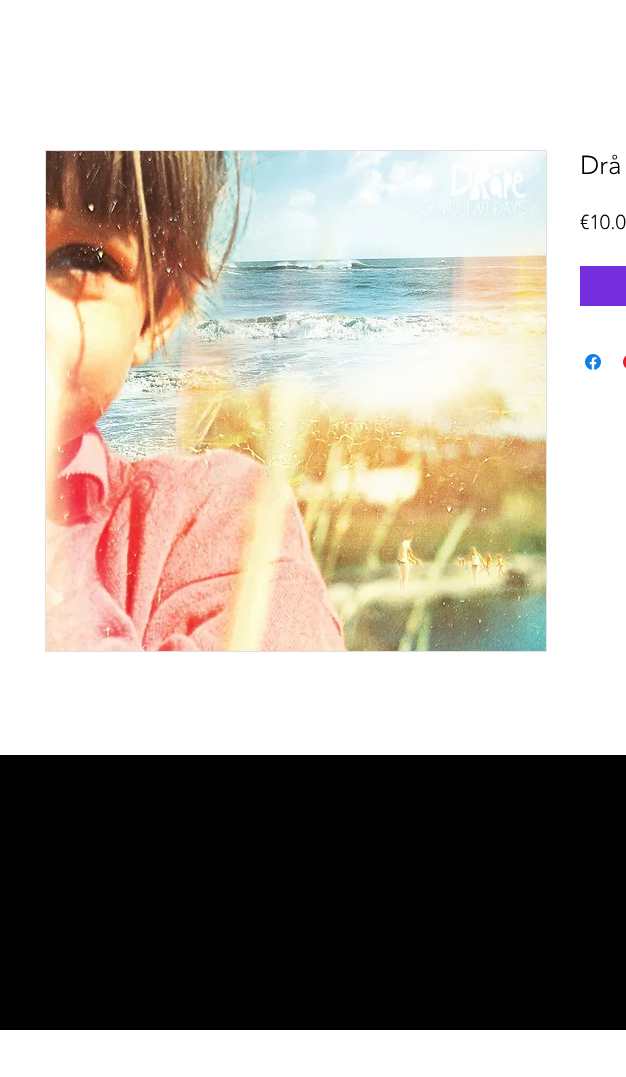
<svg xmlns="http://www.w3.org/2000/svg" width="626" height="1077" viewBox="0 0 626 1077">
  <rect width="100%" height="100%" fill="#ffffff"/>
  <rect x="45.5" y="150.5" width="501" height="501" fill="none" stroke="#e0dede"/>
  <image x="46" y="151" width="500" height="500" href="img1.png"/>
  <text x="580" y="174" font-family="'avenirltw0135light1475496'" font-size="26" font-weight="300" fill="#000000">Drå</text>
  <text x="580" y="229" font-family="'avenirltw0135light1475496'" font-size="20" font-weight="300" fill="#000000">€10.0</text>
  <rect x="580" y="266" width="46" height="40" fill="#762ddd"/>
  <image x="585" y="354" width="16" height="16" href="img2.png"/>
  <image x="623" y="355" width="3" height="13" href="img3.png"/>
  <rect x="0" y="755" width="626" height="275" fill="#000000"/>
</svg>
